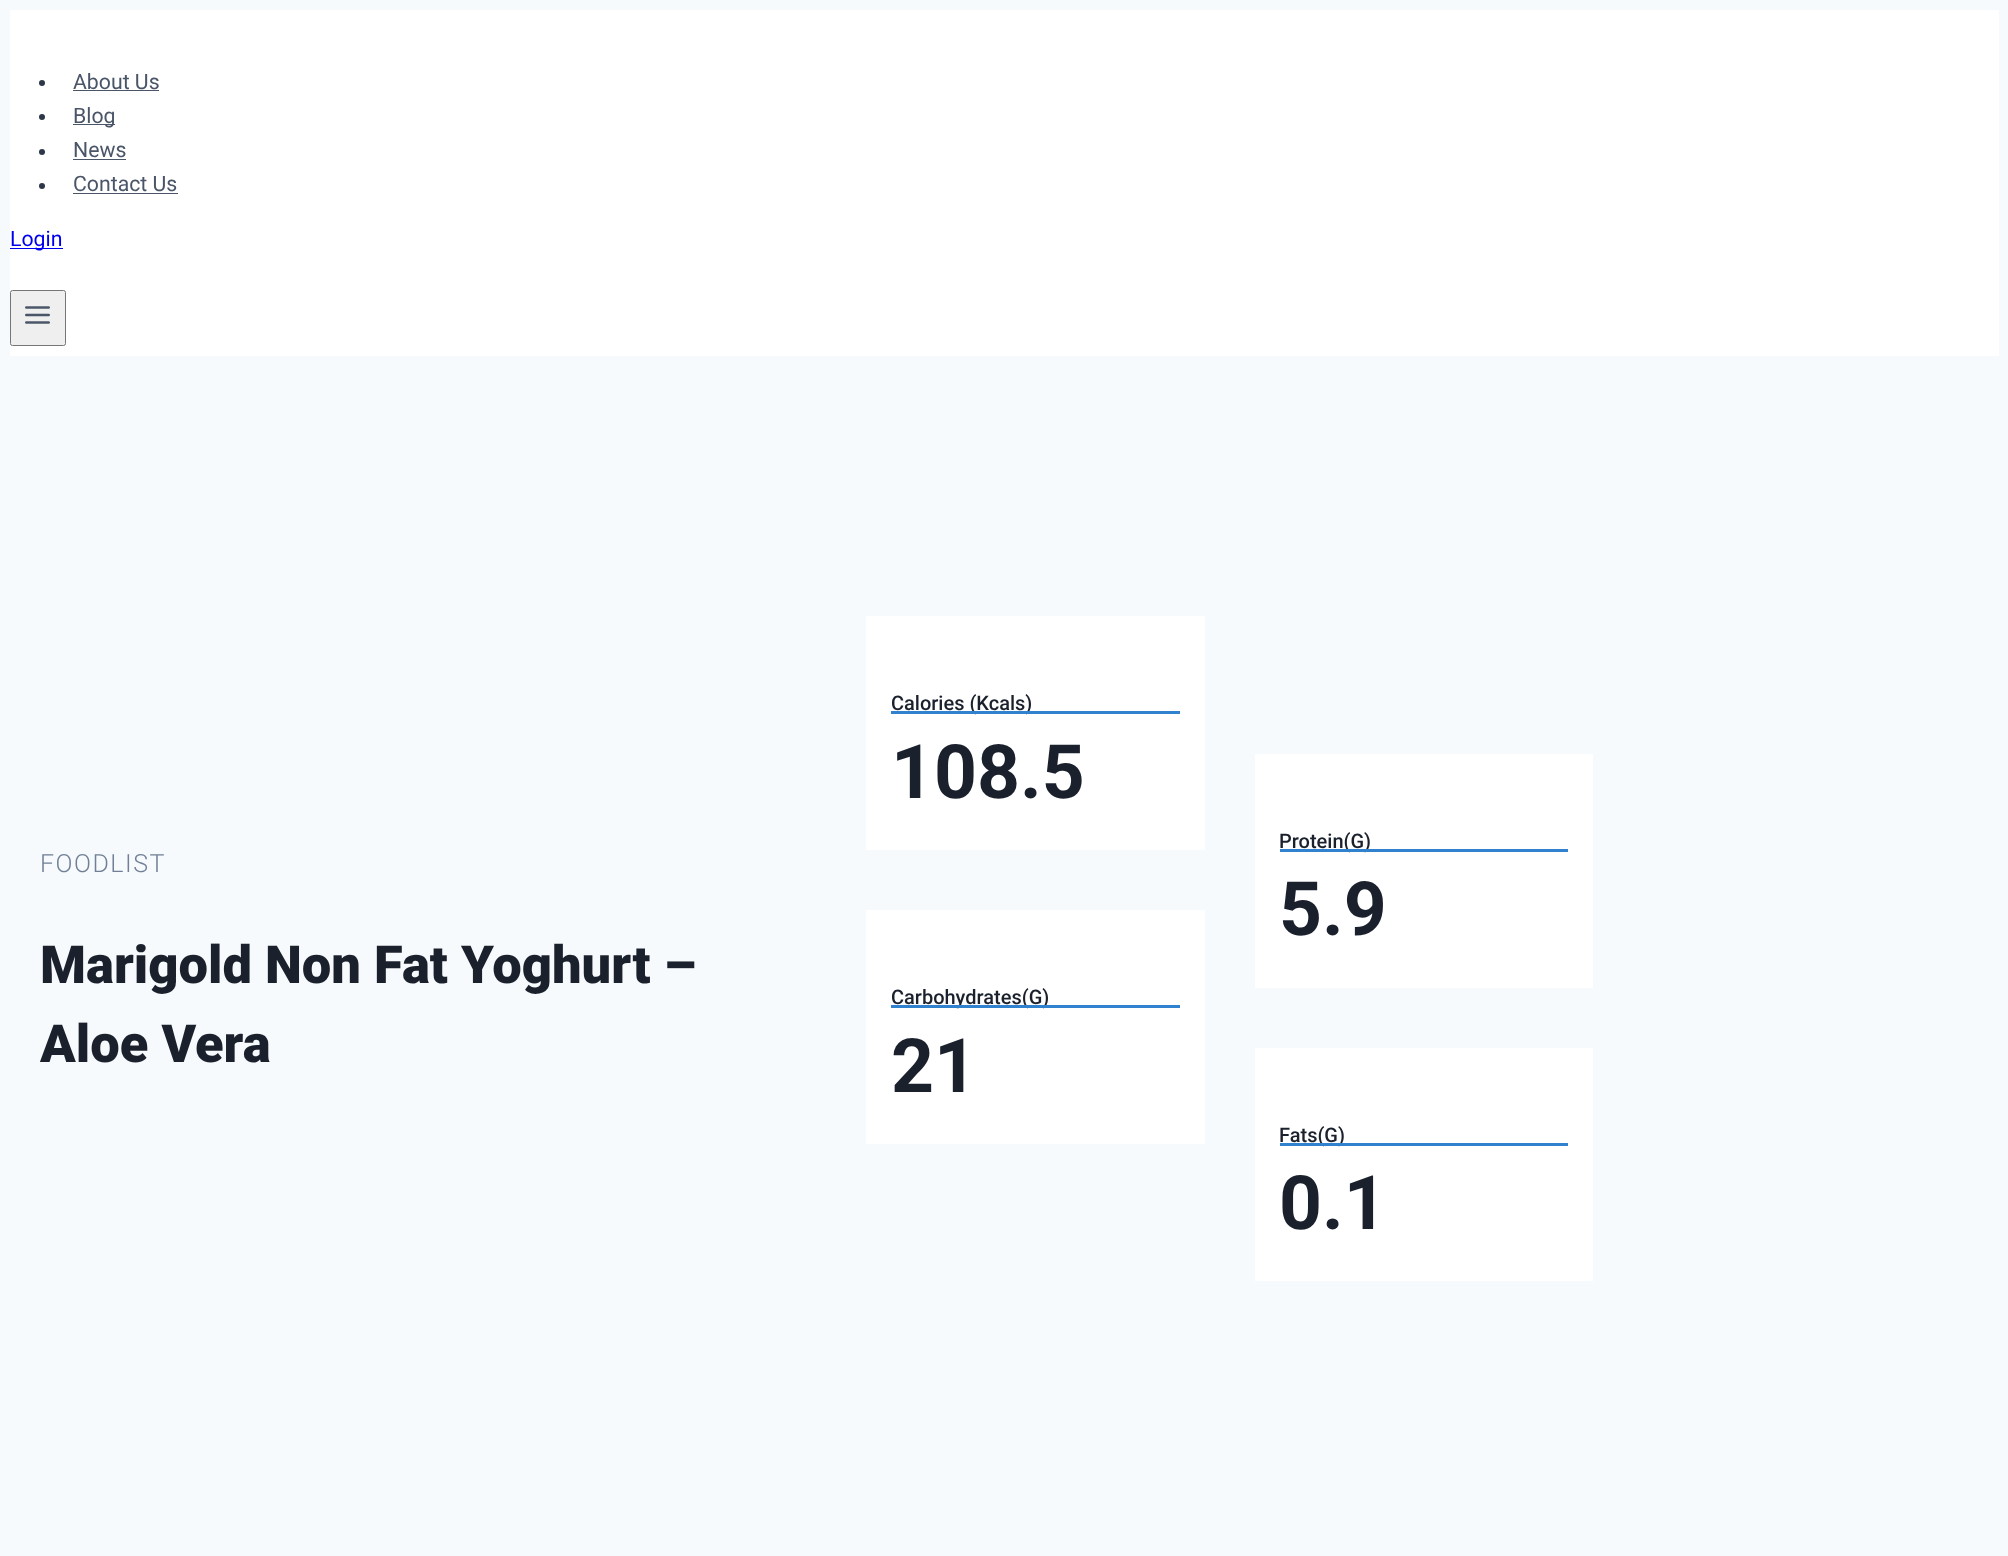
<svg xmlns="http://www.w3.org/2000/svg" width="2008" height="1556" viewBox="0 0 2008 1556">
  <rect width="100%" height="100%" fill="#f7fafc"/>
  <rect x="10" y="10" width="1989" height="346" fill="#ffffff"/>
  <circle cx="42" cy="83" r="3" fill="#2d3748"/>
  <text x="73" y="89" font-family="Roboto" font-size="21.25" fill="#4a5568">About Us</text>
  <rect x="73" y="90" width="86" height="1" fill="#4a5568"/>
  <circle cx="42" cy="117" r="3" fill="#2d3748"/>
  <rect x="73" y="124" width="42" height="1" fill="#4a5568"/>
  <text x="73" y="123" font-family="Roboto" font-size="21.25" fill="#4a5568">Blog</text>
  <circle cx="42" cy="152" r="3" fill="#2d3748"/>
  <text x="73" y="157" font-family="Roboto" font-size="21.25" fill="#4a5568">News</text>
  <rect x="73" y="159" width="53" height="1" fill="#4a5568"/>
  <circle cx="42" cy="186" r="3" fill="#2d3748"/>
  <text x="73" y="191" font-family="Roboto" font-size="21.25" fill="#4a5568">Contact Us</text>
  <rect x="73" y="193" width="105" height="1" fill="#4a5568"/>
  <rect x="10" y="248" width="53" height="1" fill="#0000ee"/>
  <text x="10" y="246" font-family="Roboto" font-size="21.25" fill="#0000ee">Login</text>
  <rect x="10.5" y="290.5" width="55" height="55" rx="2" fill="#efefef" stroke="#767676"/>
  <image x="25" y="306" width="25" height="18" href="img1.png"/>
  <text x="40" y="872" font-family="Roboto" font-size="25" font-weight="300" letter-spacing="1.5" fill="#718096">FOODLIST</text>
  <text x="40" y="983" font-family="Roboto" font-size="52.5" font-weight="900" fill="#1a202c">Marigold Non Fat Yoghurt –</text>
  <text x="40" y="1062" font-family="Roboto" font-size="52.5" font-weight="900" fill="#1a202c">Aloe Vera</text>
  <rect x="866" y="616" width="339" height="234" fill="#ffffff"/>
  <text x="891" y="710" font-family="Roboto" font-size="20" font-weight="500" fill="#1a202c">Calories (Kcals)</text>
  <rect x="891" y="711" width="289" height="3" fill="#3182ce"/>
  <text x="891" y="798" font-family="Roboto" font-size="75" font-weight="bold" fill="#1a202c">108.5</text>
  <rect x="866" y="910" width="339" height="234" fill="#ffffff"/>
  <text x="891" y="1004" font-family="Roboto" font-size="20" font-weight="500" fill="#1a202c">Carbohydrates(G)</text>
  <rect x="891" y="1005" width="289" height="3" fill="#3182ce"/>
  <text x="891" y="1092" font-family="Roboto" font-size="75" font-weight="bold" fill="#1a202c">21</text>
  <rect x="1255" y="754" width="338" height="234" fill="#ffffff"/>
  <text x="1279" y="848" font-family="Roboto" font-size="20" font-weight="500" fill="#1a202c">Protein(G)</text>
  <rect x="1280" y="849" width="288" height="3" fill="#3182ce"/>
  <text x="1279" y="935" font-family="Roboto" font-size="75" font-weight="bold" fill="#1a202c">5.9</text>
  <rect x="1255" y="1048" width="338" height="233" fill="#ffffff"/>
  <text x="1279" y="1142" font-family="Roboto" font-size="20" font-weight="500" fill="#1a202c">Fats(G)</text>
  <rect x="1280" y="1143" width="288" height="3" fill="#3182ce"/>
  <text x="1279" y="1229" font-family="Roboto" font-size="75" font-weight="bold" fill="#1a202c">0.1</text>
</svg>
